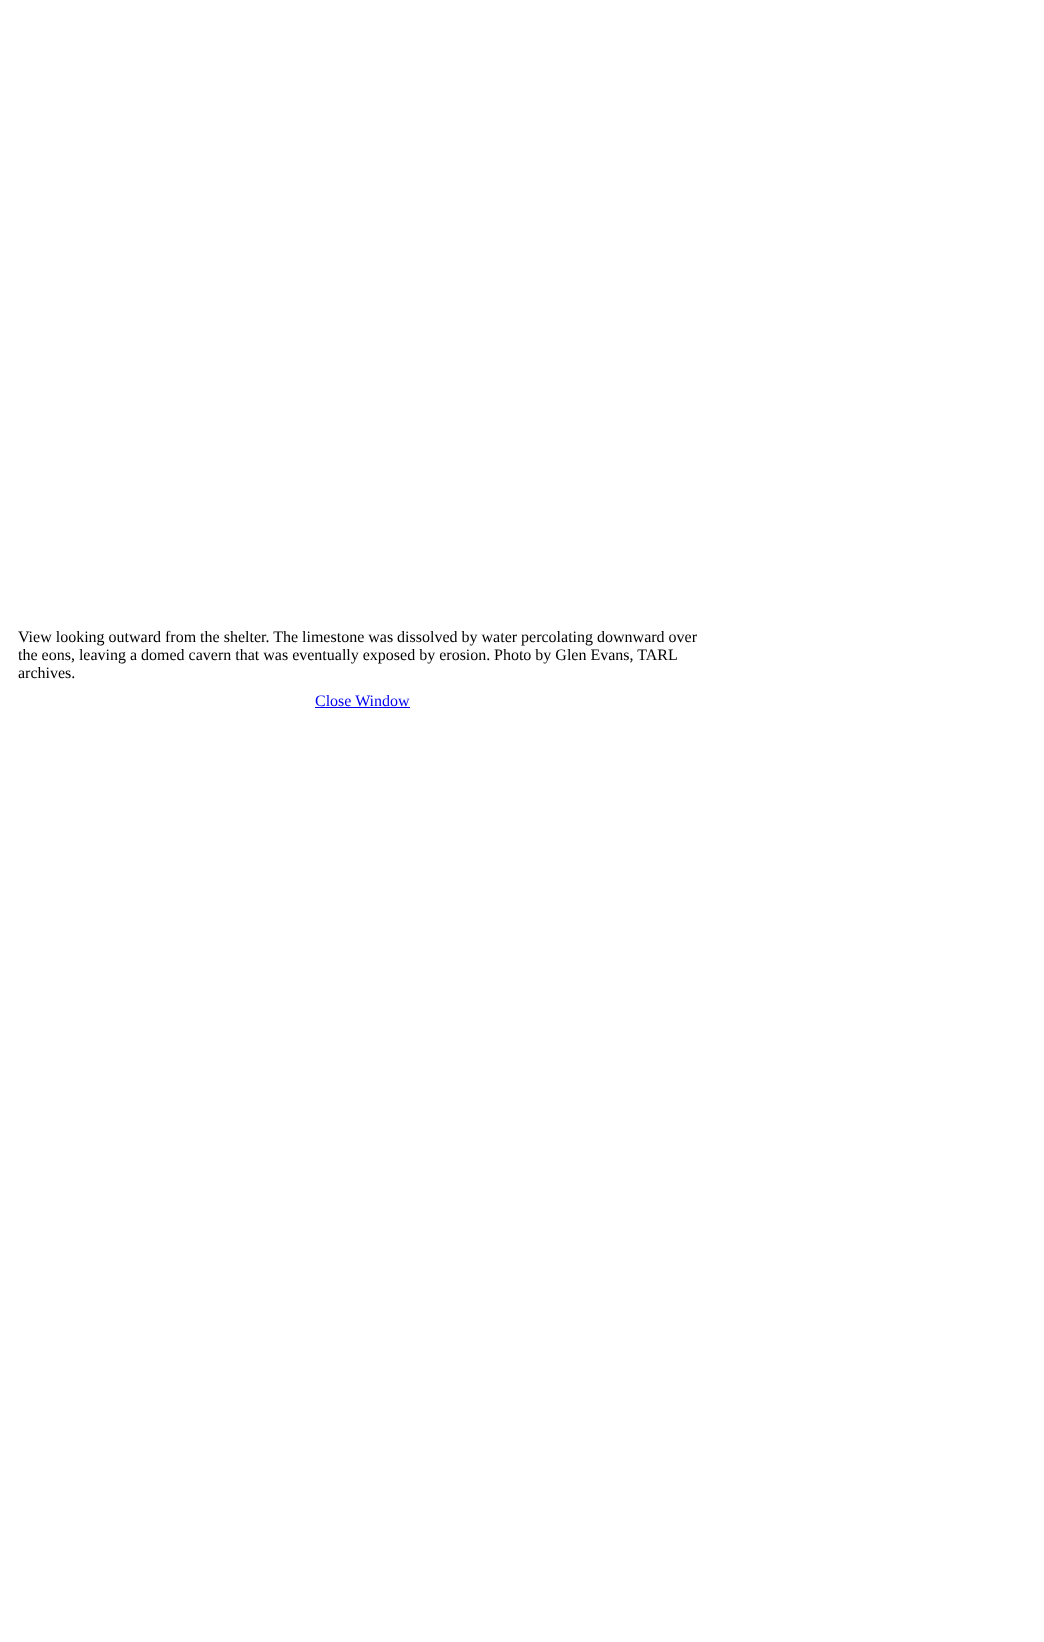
<svg xmlns="http://www.w3.org/2000/svg" width="1044" height="1642" viewBox="0 0 1044 1642">
  <rect width="100%" height="100%" fill="#ffffff"/>
  <text x="18" y="642" font-family="Liberation Serif" font-size="16" fill="#000000">View looking outward from the shelter. The limestone was dissolved by water percolating downward over</text>
  <text x="18" y="660" font-family="Liberation Serif" font-size="16" fill="#000000">the eons, leaving a domed cavern that was eventually exposed by erosion.</text>
  <text x="494" y="660" font-family="Liberation Serif" font-size="16" fill="#000000">Photo by Glen Evans, TARL</text>
  <text x="18" y="678" font-family="Liberation Serif" font-size="16" fill="#000000">archives.</text>
  <text x="315" y="706" font-family="Liberation Serif" font-size="16" fill="#0000ee">Close Window</text>
  <rect x="315" y="707" width="95" height="1" fill="#0000ee"/>
</svg>
